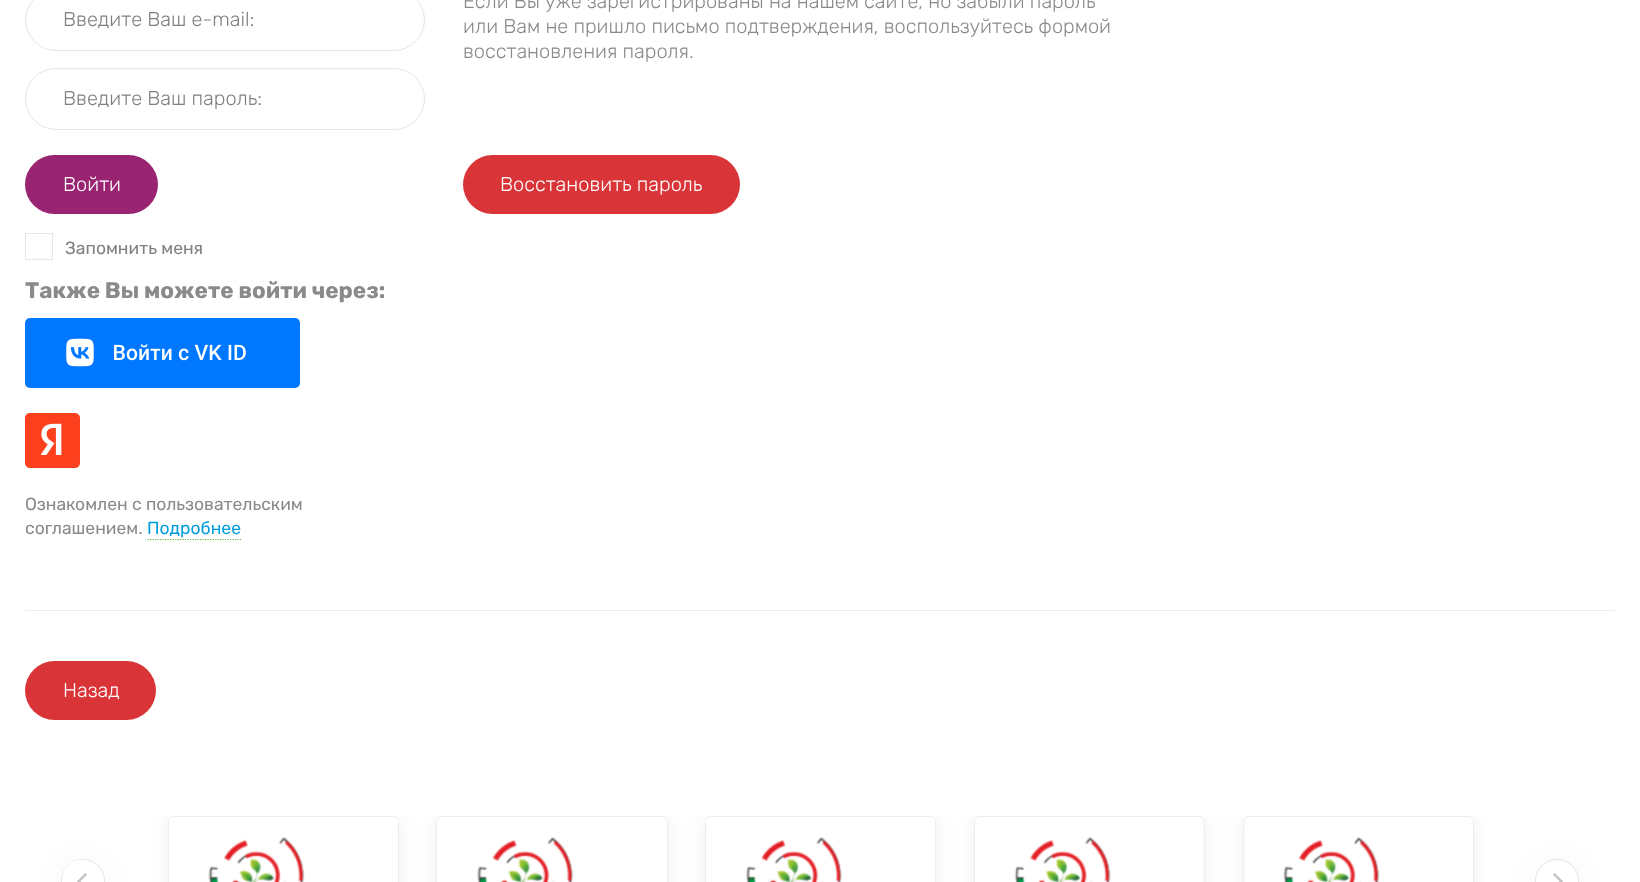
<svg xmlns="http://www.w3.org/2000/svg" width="1640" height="882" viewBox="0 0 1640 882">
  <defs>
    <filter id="blur1" x="-50%" y="-200%" width="200%" height="500%"><feGaussianBlur stdDeviation="12.5"/></filter>
    <clipPath id="clip1"><rect x="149" y="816" width="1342" height="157"/></clipPath>
    <filter id="blur2" x="-50%" y="-200%" width="200%" height="500%"><feGaussianBlur stdDeviation="9.5"/></filter>
  </defs>
  <rect width="100%" height="100%" fill="#ffffff"/>
  <rect x="25" y="610" width="1590" height="1" fill="#ededed"/>
  <rect x="25.5" y="-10.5" width="399" height="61" rx="30.5" fill="none" stroke="#e6e6e6"/>
  <text x="63" y="26" font-family="Rubik" font-size="20" font-weight="300" fill="#808080">Введите Ваш e-mail:</text>
  <rect x="25.5" y="68.5" width="399" height="61" rx="30.5" fill="none" stroke="#e6e6e6"/>
  <text x="63" y="105" font-family="Rubik" font-size="20" font-weight="300" fill="#808080">Введите Ваш пароль:</text>
  <rect x="25" y="155" width="133" height="59" rx="29.5" fill="#992472"/>
  <text x="63" y="191" font-family="Rubik" font-size="20" font-weight="300" fill="#ffffff">Войти</text>
  <rect x="25.5" y="233.5" width="27" height="26" fill="none" stroke="#e6e6e6"/>
  <text x="65" y="254" font-family="Rubik" font-size="17.5" fill="#808080">Запомнить меня</text>
  <text x="463" y="8" font-family="Rubik" font-size="20" font-weight="300" fill="#8a8a8a">Если Вы уже зарегистрированы на нашем сайте, но забыли пароль</text>
  <text x="463" y="33" font-family="Rubik" font-size="20" font-weight="300" fill="#8a8a8a">или Вам не пришло письмо подтверждения, воспользуйтесь формой</text>
  <text x="463" y="58" font-family="Rubik" font-size="20" font-weight="300" fill="#8a8a8a">восстановления пароля.</text>
  <rect x="463" y="155" width="277" height="59" rx="29.5" fill="#d93437"/>
  <text x="500" y="191" font-family="Rubik" font-size="20" font-weight="300" fill="#ffffff">Восстановить пароль</text>
  <text x="25" y="298" font-family="Rubik" font-size="22.5" font-weight="bold" fill="#8a8a8a">Также Вы можете войти через:</text>
  <rect x="25" y="318" width="275" height="70" rx="5" fill="#0077ff"/>
  <image x="66" y="338" width="180" height="29" href="img1.png"/>
  <image x="25" y="413" width="55" height="55" href="img2.png"/>
  <text x="25" y="510" font-family="Rubik" font-size="17.5" fill="#8a8a8a">Ознакомлен с пользовательским</text>
  <text x="25" y="534" font-family="Rubik" font-size="17.5" fill="#8a8a8a">соглашением.</text>
  <text x="147" y="534" font-family="Rubik" font-size="17.5" fill="#009ddc">Подробнее</text>
  <path d="M147.5 539.5H241" fill="none" stroke="#63b435" stroke-width="1.2" stroke-dasharray="1.25 1.25"/>
  <rect x="25" y="661" width="131" height="59" rx="29.5" fill="#d93437"/>
  <text x="63" y="697" font-family="Rubik" font-size="20" font-weight="300" fill="#ffffff">Назад</text>
  <rect x="61" y="864" width="44" height="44" rx="22" fill="#d6b7cf" fill-opacity="0.2" filter="url(#blur1)"/>
  <circle cx="83" cy="881" r="21.5" fill="#ffffff" stroke="#e5e5e5"/>
  <ellipse cx="81" cy="880.5" rx="19" ry="20.5" fill="#ffffff"/>
  <image x="77" y="873" width="10" height="9" href="img3.png"/>
  <g clip-path="url(#clip1)">
    <rect x="168" y="818" width="231" height="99" rx="6" fill="#000000" fill-opacity="0.06" filter="url(#blur2)"/>
  </g>
  <rect x="168.5" y="816.5" width="230" height="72" rx="5.5" fill="#ffffff" stroke="#ededed"/>
  <image x="208" y="837" width="97" height="45" href="img4.png"/>
  <g clip-path="url(#clip1)">
    <rect x="436" y="818" width="232" height="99" rx="6" fill="#000000" fill-opacity="0.06" filter="url(#blur2)"/>
  </g>
  <rect x="436.5" y="816.5" width="231" height="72" rx="5.5" fill="#ffffff" stroke="#ededed"/>
  <image x="477" y="837" width="97" height="45" href="img5.png"/>
  <g clip-path="url(#clip1)">
    <rect x="705" y="818" width="231" height="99" rx="6" fill="#000000" fill-opacity="0.06" filter="url(#blur2)"/>
  </g>
  <rect x="705.5" y="816.5" width="230" height="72" rx="5.5" fill="#ffffff" stroke="#ededed"/>
  <image x="746" y="837" width="96" height="45" href="img6.png"/>
  <g clip-path="url(#clip1)">
    <rect x="974" y="818" width="231" height="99" rx="6" fill="#000000" fill-opacity="0.06" filter="url(#blur2)"/>
  </g>
  <rect x="974.5" y="816.5" width="230" height="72" rx="5.5" fill="#ffffff" stroke="#ededed"/>
  <image x="1014" y="837" width="97" height="45" href="img7.png"/>
  <g clip-path="url(#clip1)">
    <rect x="1243" y="818" width="231" height="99" rx="6" fill="#000000" fill-opacity="0.06" filter="url(#blur2)"/>
  </g>
  <rect x="1243.5" y="816.5" width="230" height="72" rx="5.5" fill="#ffffff" stroke="#ededed"/>
  <image x="1283" y="837" width="97" height="45" href="img4.png"/>
  <rect x="1535" y="864" width="44" height="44" rx="22" fill="#d6b7cf" fill-opacity="0.2" filter="url(#blur1)"/>
  <circle cx="1557" cy="881" r="21.5" fill="#ffffff" stroke="#e5e5e5"/>
  <image x="1553" y="873" width="10" height="9" href="img8.png"/>
</svg>
